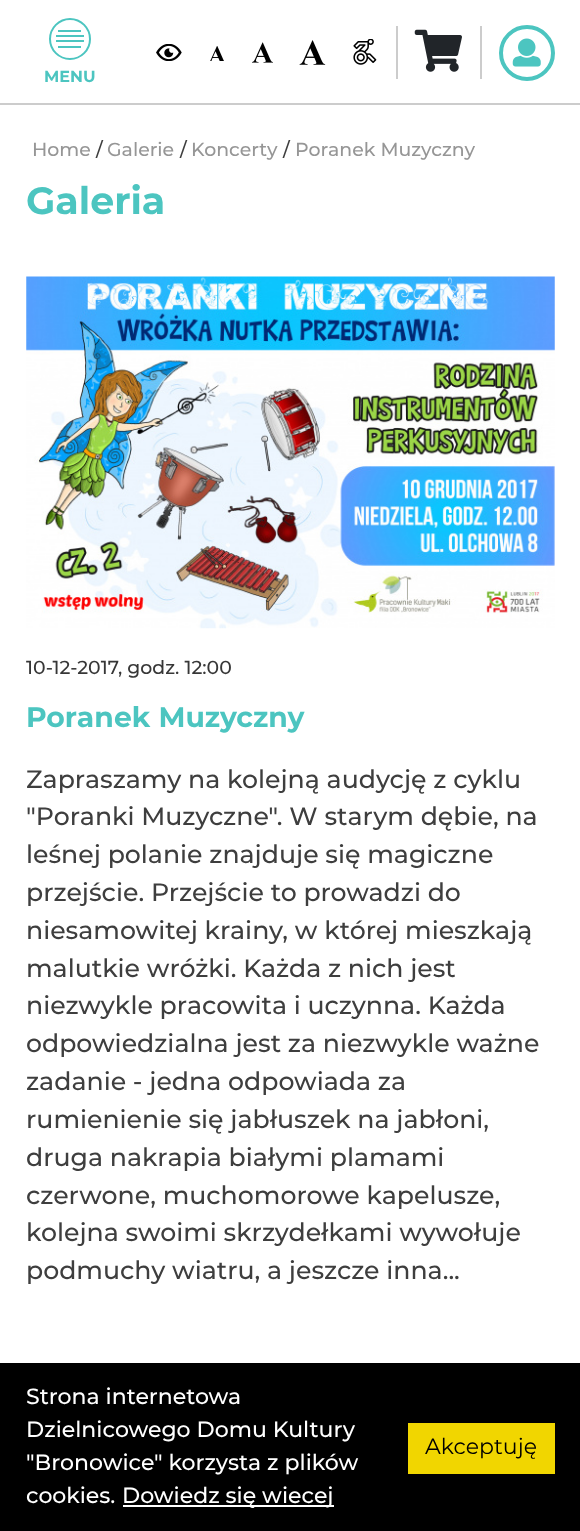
<svg xmlns="http://www.w3.org/2000/svg" width="580" height="1531" viewBox="0 0 580 1531">
  <rect width="100%" height="100%" fill="#ffffff"/>
  <rect x="0" y="103" width="580" height="2" fill="#cccccc"/>
  <image x="156" y="44" width="26" height="17" href="img1.png"/>
  <image x="210" y="46" width="14" height="15" href="img2.png"/>
  <image x="252" y="42" width="21" height="21" href="img3.png"/>
  <image x="299" y="40" width="27" height="25" href="img4.png"/>
  <image x="353" y="39" width="24" height="26" href="img5.png"/>
  <rect x="396" y="26" width="2" height="53" fill="#cccccc"/>
  <image x="414" y="29" width="48" height="43" href="img6.png"/>
  <rect x="480" y="26" width="2" height="53" fill="#cccccc"/>
  <circle cx="527" cy="53" r="26" fill="none" stroke="#4cc5c0" stroke-width="4"/>
  <image x="512" y="38" width="29" height="29" href="img7.png"/>
  <circle cx="70" cy="39" r="20" fill="none" stroke="#4cc5c0" stroke-width="2"/>
  <rect x="58" y="30" width="23" height="2" fill="#4cc5c0"/>
  <rect x="56" y="35" width="28" height="2" fill="#4cc5c0"/>
  <rect x="56" y="40" width="28" height="2" fill="#4cc5c0"/>
  <rect x="58" y="46" width="23" height="2" fill="#4cc5c0"/>
  <text x="44" y="82" font-family="Montserrat" font-size="16" font-weight="bold" fill="#4cc5c0">MENU</text>
  <text x="32" y="156" font-family="Montserrat" font-size="18.9" font-weight="500" fill="#969696">Home</text>
  <text x="96" y="156" font-family="Montserrat" font-size="18.9" font-weight="500" fill="#3e3e3e">/</text>
  <text x="107" y="156" font-family="Montserrat" font-size="18.9" font-weight="500" fill="#969696">Galerie</text>
  <text x="180" y="156" font-family="Montserrat" font-size="18.9" font-weight="500" fill="#3e3e3e">/</text>
  <text x="191" y="156" font-family="Montserrat" font-size="18.9" font-weight="500" fill="#969696">Koncerty</text>
  <text x="283" y="156" font-family="Montserrat" font-size="18.9" font-weight="500" fill="#3e3e3e">/</text>
  <text x="295" y="156" font-family="Montserrat" font-size="18.9" font-weight="500" fill="#969696">Poranek Muzyczny</text>
  <text x="26" y="214" font-family="Montserrat" font-size="38" font-weight="bold" fill="#4cc5c0">Galeria</text>
  <image x="26" y="276" width="529" height="353" href="img8.png"/>
  <text x="26" y="674" font-family="Montserrat" font-size="18.9" font-weight="500" fill="#373737">10-12-2017, godz. 12:00</text>
  <text x="26" y="727" font-family="Montserrat" font-size="28.25" font-weight="bold" fill="#4cc5c0">Poranek Muzyczny</text>
  <text x="26" y="788" font-family="Montserrat" font-size="25.2" font-weight="500" fill="#3e3e3e">Zapraszamy na kolejną audycję z cyklu</text>
  <text x="26" y="825" font-family="Montserrat" font-size="25.2" font-weight="500" fill="#3e3e3e">"Poranki Muzyczne". W starym dębie, na</text>
  <text x="26" y="863" font-family="Montserrat" font-size="25.2" font-weight="500" fill="#3e3e3e">leśnej polanie znajduje się magiczne</text>
  <text x="26" y="901" font-family="Montserrat" font-size="25.2" font-weight="500" fill="#3e3e3e">przejście. Przejście to prowadzi do</text>
  <text x="26" y="939" font-family="Montserrat" font-size="25.2" font-weight="500" fill="#3e3e3e">niesamowitej krainy, w której mieszkają</text>
  <text x="26" y="977" font-family="Montserrat" font-size="25.2" font-weight="500" fill="#3e3e3e">malutkie wróżki. Każda z nich jest</text>
  <text x="26" y="1014" font-family="Montserrat" font-size="25.2" font-weight="500" fill="#3e3e3e">niezwykle pracowita i uczynna. Każda</text>
  <text x="26" y="1052" font-family="Montserrat" font-size="25.2" font-weight="500" fill="#3e3e3e">odpowiedzialna jest za niezwykle ważne</text>
  <text x="26" y="1090" font-family="Montserrat" font-size="25.2" font-weight="500" fill="#3e3e3e">zadanie - jedna odpowiada za</text>
  <text x="26" y="1128" font-family="Montserrat" font-size="25.2" font-weight="500" fill="#3e3e3e">rumienienie się jabłuszek na jabłoni,</text>
  <text x="26" y="1166" font-family="Montserrat" font-size="25.2" font-weight="500" fill="#3e3e3e">druga nakrapia białymi plamami</text>
  <text x="26" y="1204" font-family="Montserrat" font-size="25.2" font-weight="500" fill="#3e3e3e">czerwone, muchomorowe kapelusze,</text>
  <text x="26" y="1241" font-family="Montserrat" font-size="25.2" font-weight="500" fill="#3e3e3e">kolejna swoimi skrzydełkami wywołuje</text>
  <text x="26" y="1279" font-family="Montserrat" font-size="25.2" font-weight="500" fill="#3e3e3e">podmuchy wiatru, a jeszcze inna...</text>
  <rect x="0" y="1363" width="580" height="168" fill="#000000"/>
  <text x="26" y="1404" font-family="Montserrat" font-size="22" font-weight="500" fill="#ffffff">Strona internetowa</text>
  <text x="26" y="1437" font-family="Montserrat" font-size="22" font-weight="500" fill="#ffffff">Dzielnicowego Domu Kultury</text>
  <rect x="408" y="1423" width="147" height="51" fill="#f1d600"/>
  <text x="425" y="1454" font-family="Montserrat" font-size="22" fill="#000000">Akceptuję</text>
  <text x="26" y="1470" font-family="Montserrat" font-size="22" font-weight="500" fill="#ffffff">"Bronowice" korzysta z plików</text>
  <text x="26" y="1503" font-family="Montserrat" font-size="22" font-weight="500" fill="#ffffff">cookies.</text>
  <rect x="123" y="1505" width="211" height="2" fill="#ffffff"/>
  <text x="122" y="1503" font-family="Montserrat" font-size="22" font-weight="500" fill="#ffffff">Dowiedz się wiecej</text>
</svg>
